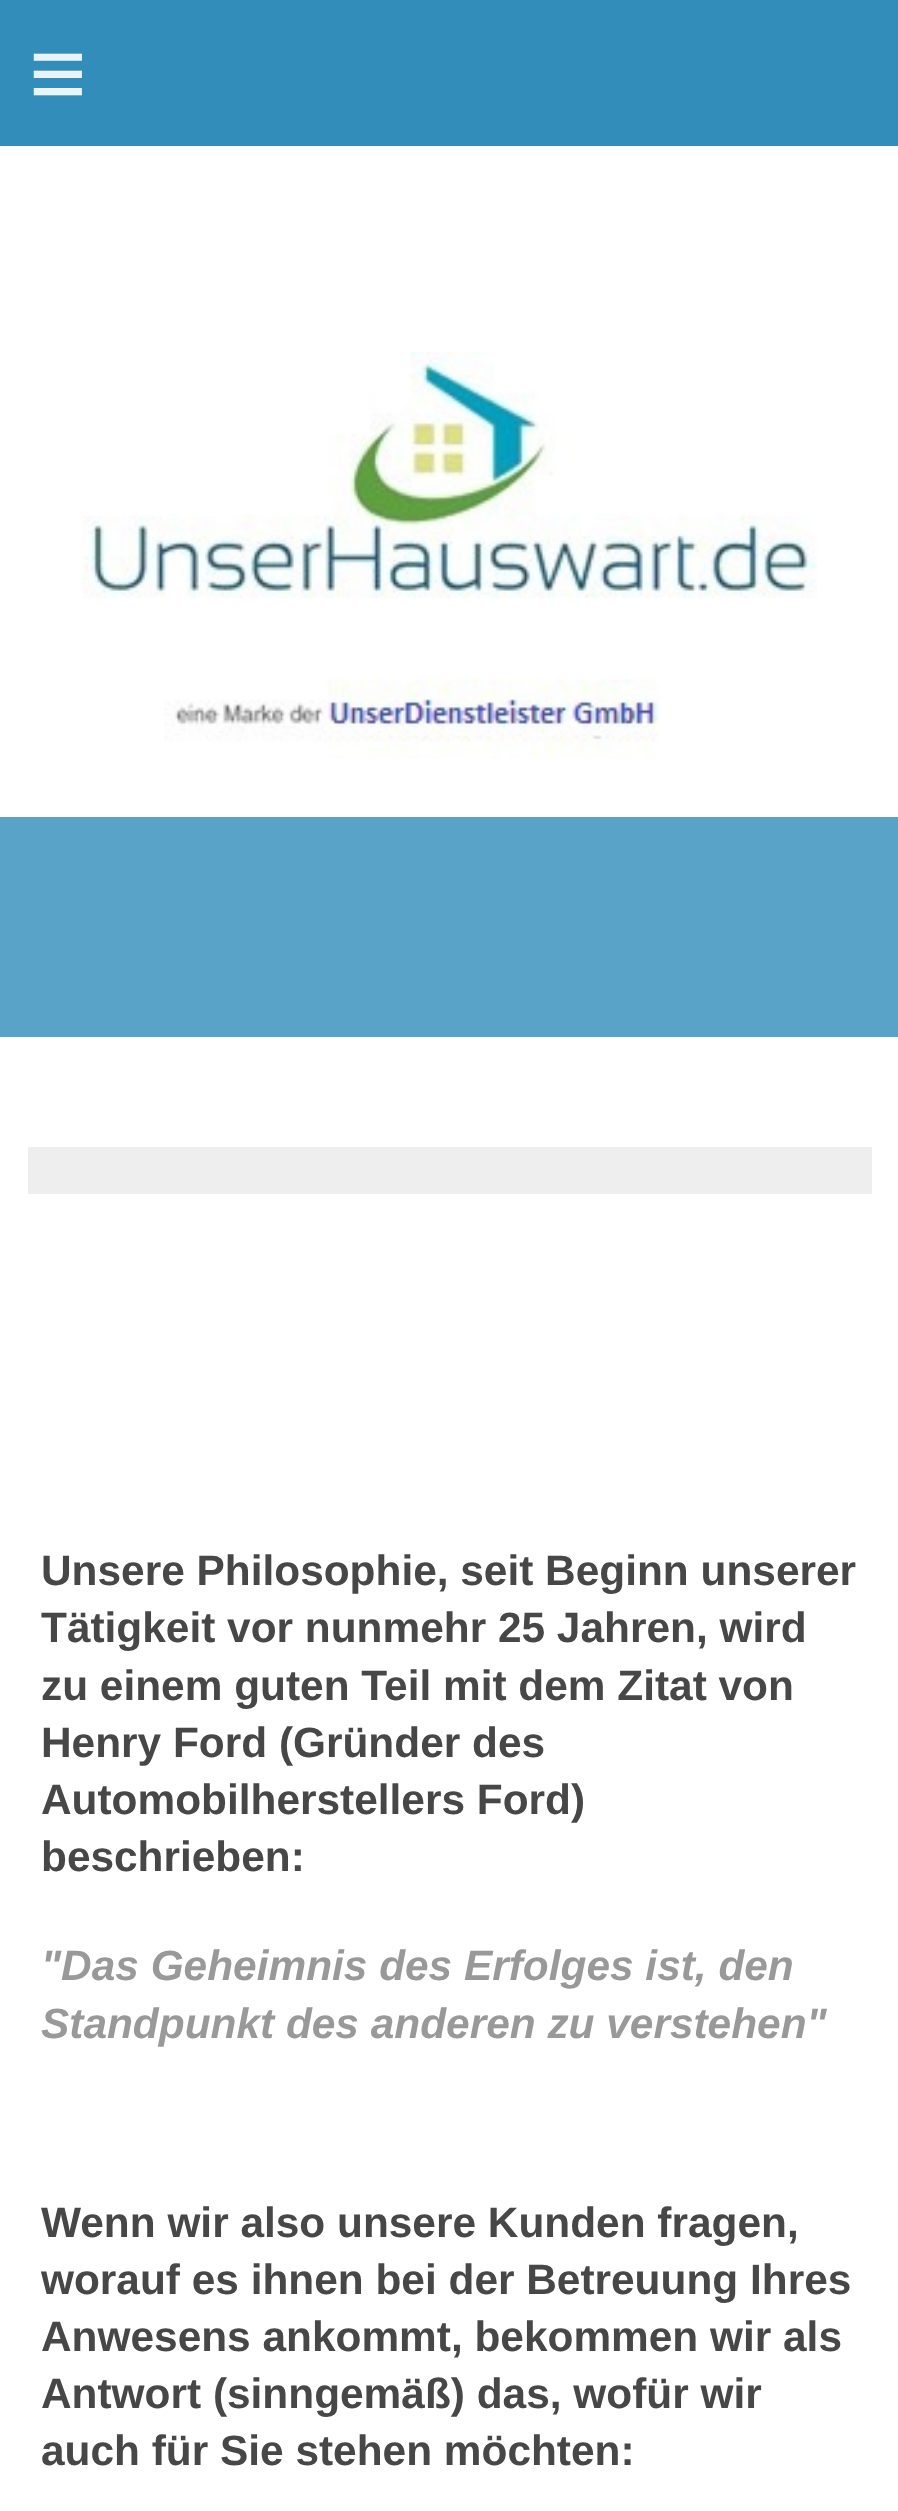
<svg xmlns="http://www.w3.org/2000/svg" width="898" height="2511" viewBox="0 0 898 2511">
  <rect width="100%" height="100%" fill="#ffffff"/>
  <rect x="0" y="0" width="898" height="146" fill="#328dbb"/>
  <text x="29" y="107" font-family="Liberation Sans" font-size="99" letter-spacing="29" fill="#eaf4f8">≡</text>
  <image x="82" y="352" width="735" height="407" href="img1.png"/>
  <rect x="0" y="817" width="898" height="220" fill="#5aa3c8"/>
  <rect x="28" y="1147" width="844" height="47" fill="#eeeeee"/>
  <text x="41" y="1585" font-family="Liberation Sans" font-size="42.4" font-weight="bold" fill="#474747">Unsere Philosophie, seit Beginn unserer</text>
  <text x="41" y="1642" font-family="Liberation Sans" font-size="42.4" font-weight="bold" fill="#474747">Tätigkeit vor nunmehr 25 Jahren, wird</text>
  <text x="41" y="1700" font-family="Liberation Sans" font-size="42.4" font-weight="bold" fill="#474747">zu einem guten Teil mit dem Zitat von</text>
  <text x="41" y="1757" font-family="Liberation Sans" font-size="42.4" font-weight="bold" fill="#474747">Henry Ford (Gründer des</text>
  <text x="41" y="1814" font-family="Liberation Sans" font-size="42.4" font-weight="bold" fill="#474747">Automobilherstellers Ford)</text>
  <text x="41" y="1871" font-family="Liberation Sans" font-size="42.4" font-weight="bold" fill="#474747">beschrieben:</text>
  <text x="41" y="1980" font-family="Liberation Sans" font-size="42.4" font-weight="bold" font-style="italic" fill="#999999">"Das Geheimnis des Erfolges ist, den</text>
  <text x="41" y="2038" font-family="Liberation Sans" font-size="42.4" font-weight="bold" font-style="italic" fill="#999999">Standpunkt des anderen zu verstehen"</text>
  <text x="41" y="2237" font-family="Liberation Sans" font-size="42.4" font-weight="bold" fill="#474747">Wenn wir also unsere Kunden fragen,</text>
  <text x="41" y="2294" font-family="Liberation Sans" font-size="42.4" font-weight="bold" fill="#474747">worauf es ihnen bei der Betreuung Ihres</text>
  <text x="41" y="2351" font-family="Liberation Sans" font-size="42.4" font-weight="bold" fill="#474747">Anwesens ankommt, bekommen wir als</text>
  <text x="41" y="2408" font-family="Liberation Sans" font-size="42.4" font-weight="bold" fill="#474747">Antwort (sinngemäß) das, wofür wir</text>
  <text x="41" y="2465" font-family="Liberation Sans" font-size="42.4" font-weight="bold" fill="#474747">auch für Sie stehen möchten:</text>
</svg>
